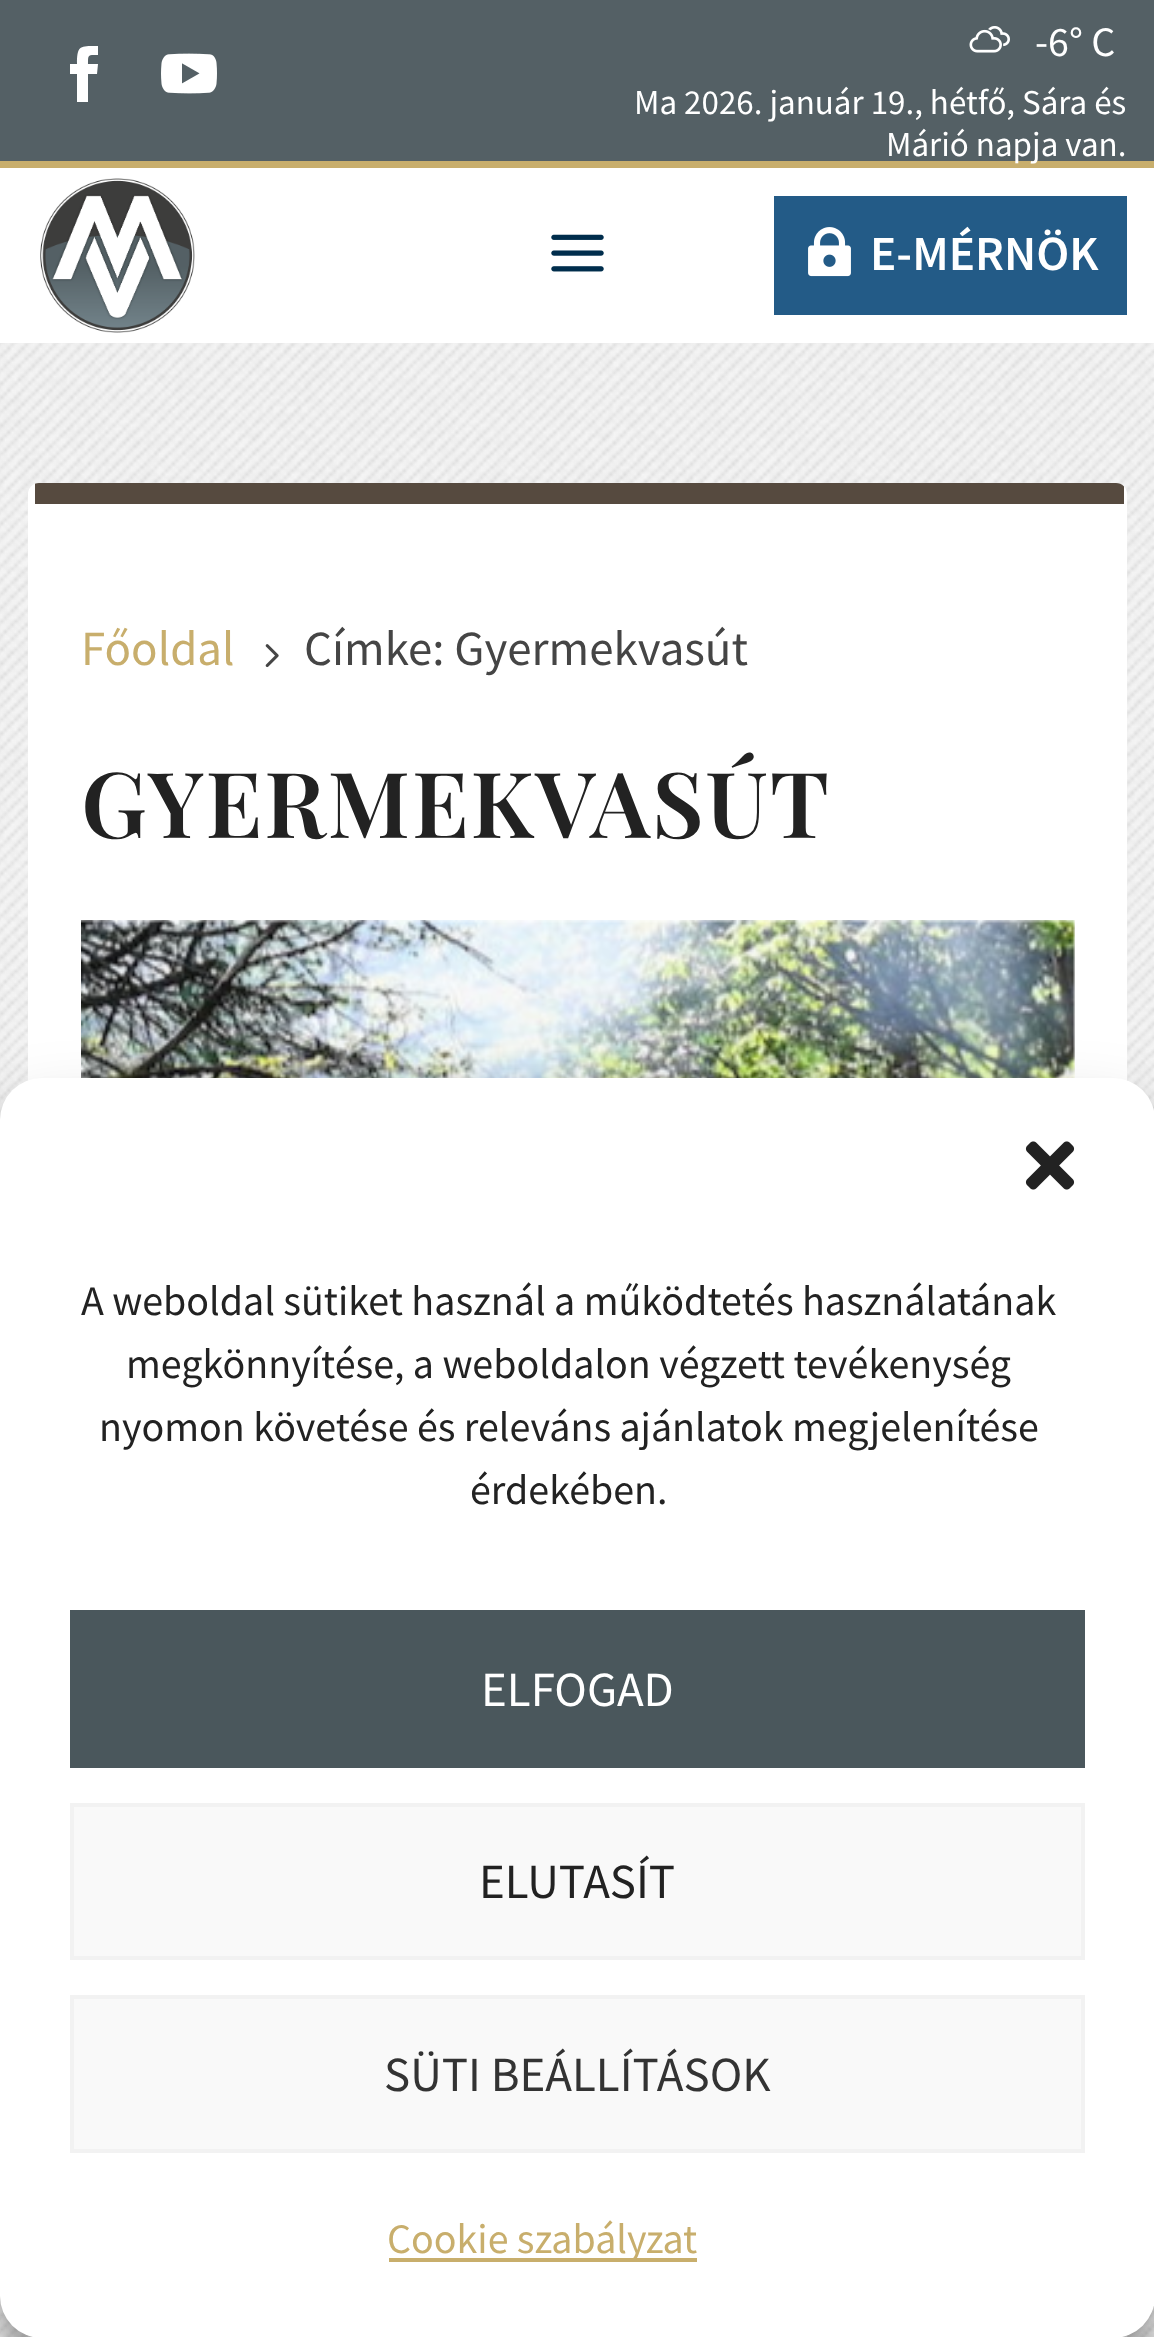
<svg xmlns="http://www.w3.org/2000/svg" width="1154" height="2337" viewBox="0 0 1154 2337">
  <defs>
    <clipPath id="clip1"><rect x="28" y="483" width="1099" height="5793" rx="11"/></clipPath>
    <filter id="blur1" x="-50%" y="-200%" width="200%" height="500%"><feGaussianBlur stdDeviation="10.5"/></filter>
    <filter id="blur2" x="-50%" y="-200%" width="200%" height="500%"><feGaussianBlur stdDeviation="35"/></filter>
  </defs>
  <rect width="100%" height="100%" fill="#ffffff"/>
  <image x="0" y="343" width="1154" height="1994" href="img1.png"/>
  <rect x="0" y="0" width="1154" height="161" fill="#546065"/>
  <rect x="0" y="161" width="1154" height="7" fill="#c8ae6c"/>
  <path d="M77 102H88V74H97L98 64H88C88 54 88 55 98 55V46C80 46 77 45 77 64H70V74H77Z" fill="#ffffff"/>
  <image x="161" y="53" width="56" height="41" href="img2.png"/>
  <image x="969" y="26" width="41" height="27" href="img3.png"/>
  <text x="1035" y="56" font-family="Source Sans Pro" font-size="42" fill="#ffffff">-6° C</text>
  <text x="634" y="114" font-family="Source Sans Pro" font-size="35" fill="#ffffff">Ma 2026. január 19., hétfő, Sára és</text>
  <text x="886" y="156" font-family="Source Sans Pro" font-size="35" fill="#ffffff">Márió napja van.</text>
  <image x="40" y="178" width="155" height="155" href="img4.png"/>
  <image x="551" y="234" width="53" height="38" href="img5.png"/>
  <rect x="774" y="196" width="353" height="119" fill="#235b87"/>
  <image x="808" y="227" width="43" height="50" href="img6.png"/>
  <text x="870" y="270" font-family="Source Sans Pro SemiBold" font-size="49" font-weight="600" fill="#ffffff">E-MÉRNÖK</text>
  <rect x="28" y="483" width="1099" height="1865" rx="11" fill="#ffffff"/>
  <g clip-path="url(#clip1)">
    <rect x="35" y="483" width="1089" height="21" fill="#564a3f"/>
  </g>
  <text x="81" y="665" font-family="Source Sans Pro" font-size="49" fill="#c8ae6c">Főoldal</text>
  <image x="265" y="644" width="14" height="24" href="img7.png"/>
  <text x="304" y="665" font-family="Source Sans Pro" font-size="49" fill="#454545">Címke: Gyermekvasút</text>
  <text x="81" y="838" font-family="Playfair Display" font-size="91" font-weight="600" letter-spacing="1.75" fill="#222222">GYERMEKVASÚT</text>
  <image x="81" y="920" width="994" height="158" href="img8.png"/>
  <rect x="0" y="1099" width="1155" height="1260" rx="42" fill="#000000" fill-opacity="0.23" filter="url(#blur1)"/>
  <rect x="0" y="1113" width="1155" height="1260" rx="42" fill="#000000" fill-opacity="0.19" filter="url(#blur2)"/>
  <rect x="0" y="1078" width="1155" height="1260" rx="42" fill="#ffffff"/>
  <image x="1025" y="1141" width="50" height="49" href="img9.png"/>
  <text x="81" y="1315" font-family="Source Sans Pro" font-size="42" fill="#222222">A weboldal sütiket használ a működtetés használatának</text>
  <text x="126" y="1378" font-family="Source Sans Pro" font-size="42" fill="#222222">megkönnyítése, a weboldalon végzett tevékenység</text>
  <text x="99" y="1441" font-family="Source Sans Pro" font-size="42" fill="#222222">nyomon követése és releváns ajánlatok megjelenítése</text>
  <text x="470" y="1504" font-family="Source Sans Pro" font-size="42" fill="#222222">érdekében.</text>
  <rect x="70" y="1610" width="1015" height="158" fill="#4a575c"/>
  <text x="481" y="1706" font-family="Source Sans Pro" font-size="49" fill="#ffffff">ELFOGAD</text>
  <rect x="72" y="1805" width="1011" height="153" fill="#f9f9f9" stroke="#f2f2f2" stroke-width="4"/>
  <text x="479" y="1898" font-family="Source Sans Pro" font-size="49" fill="#222222">ELUTASÍT</text>
  <rect x="72" y="1997" width="1011" height="154" fill="#f9f9f9" stroke="#f2f2f2" stroke-width="4"/>
  <text x="384" y="2091" font-family="Source Sans Pro" font-size="49" fill="#333333">SÜTI BEÁLLÍTÁSOK</text>
  <rect x="389" y="2258" width="308" height="4" fill="#c8ae6c"/>
  <text x="387" y="2253" font-family="Source Sans Pro" font-size="42" fill="#c8ae6c">Cookie szabályzat</text>
</svg>
